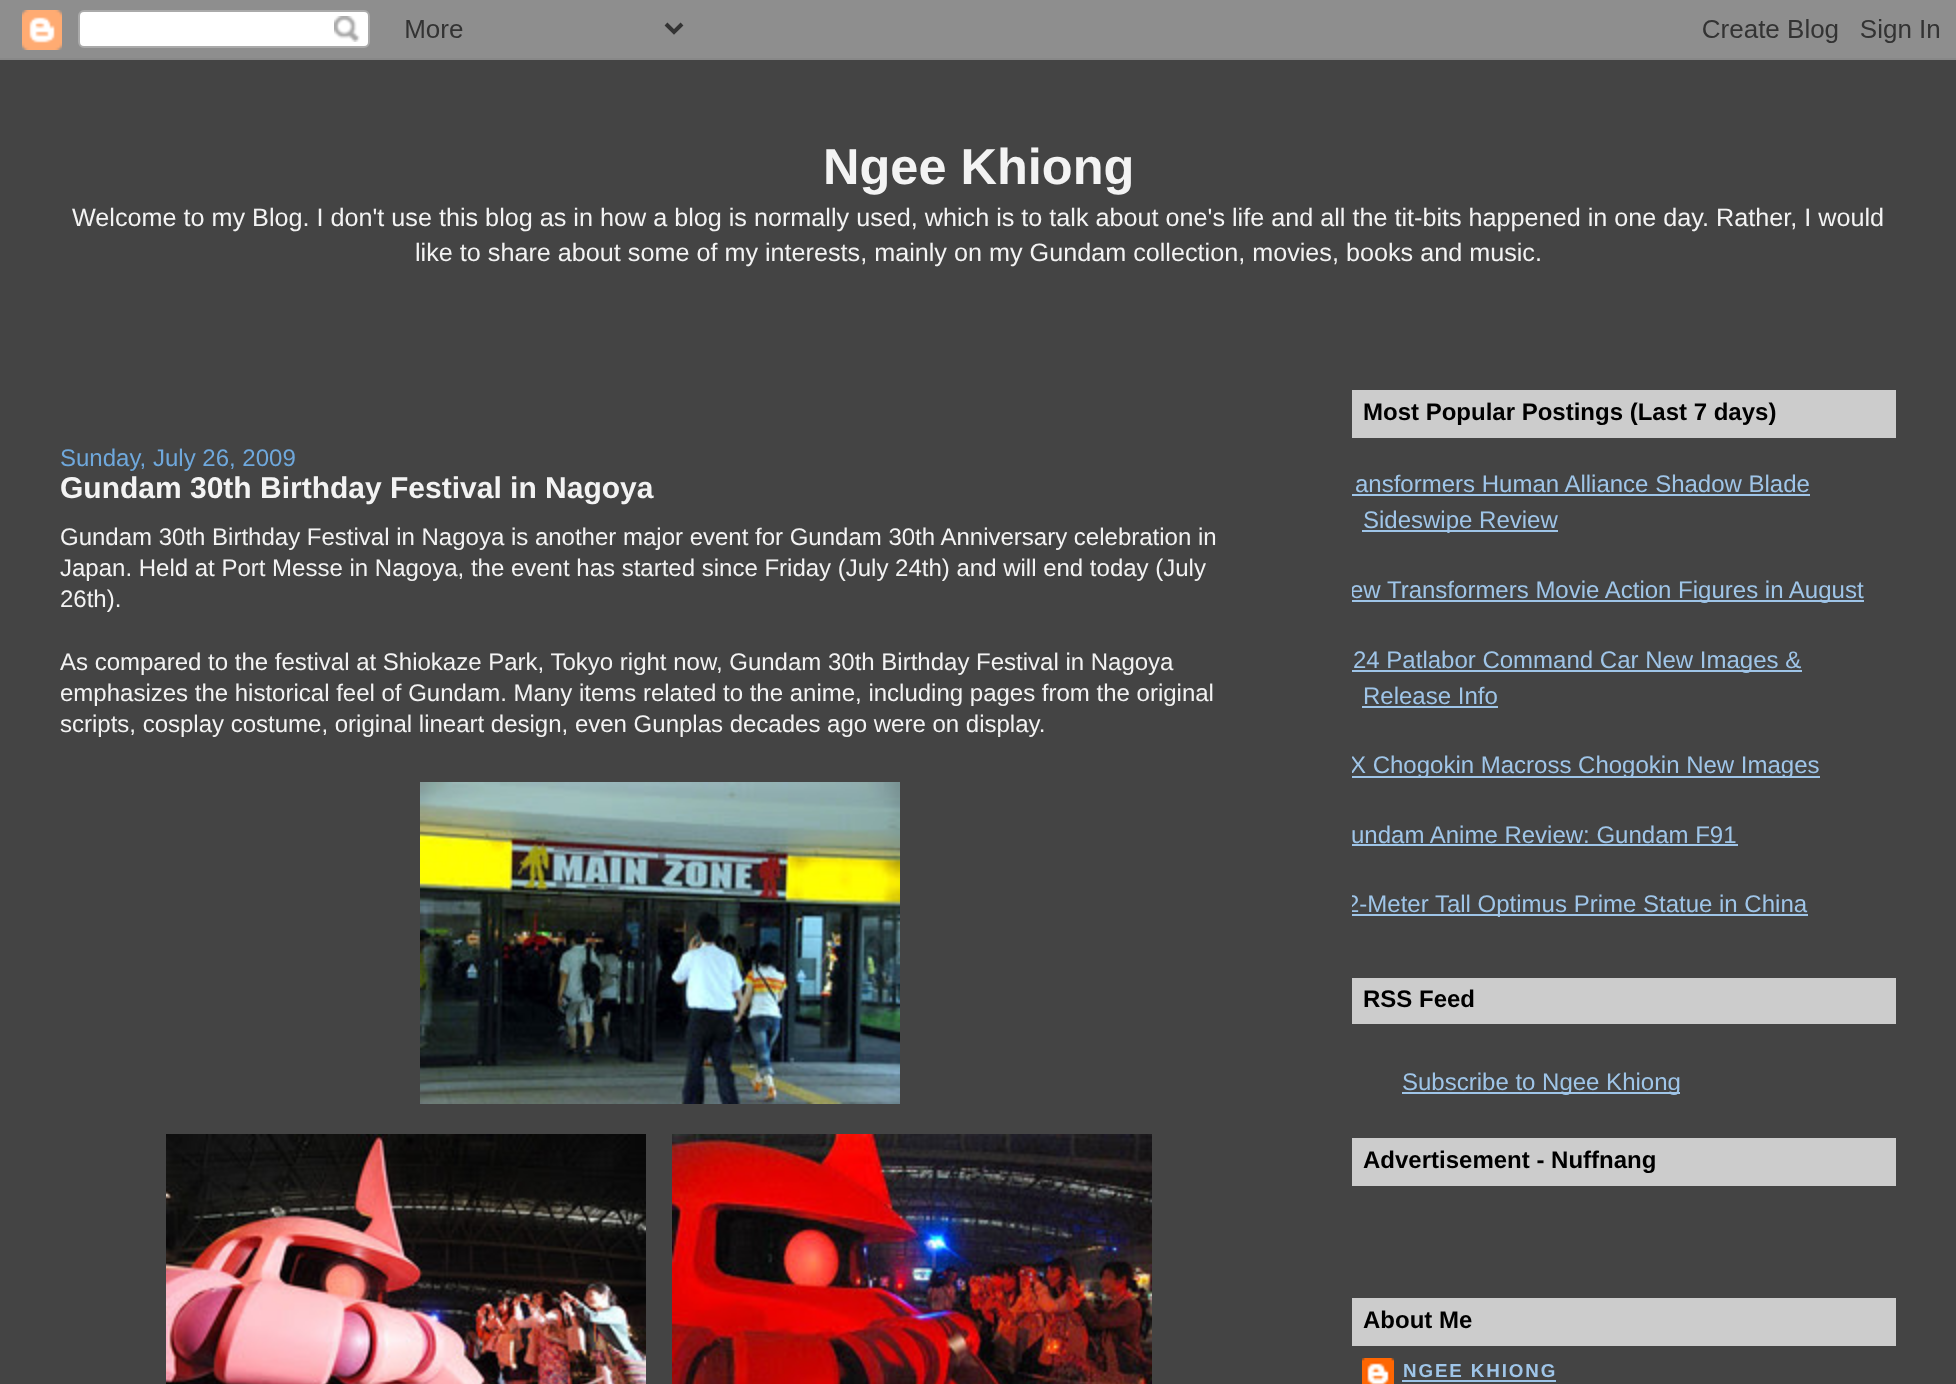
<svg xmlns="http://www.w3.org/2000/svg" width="1956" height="1384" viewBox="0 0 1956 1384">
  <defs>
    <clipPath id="clip1"><rect x="1352" y="352" width="544" height="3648"/></clipPath>
  </defs>
  <rect width="100%" height="100%" fill="#444444"/>
  <image x="0" y="0" width="1956" height="60" href="img1.png"/>
  <text x="823" y="184" font-family="Liberation Sans" font-size="50.5" font-weight="bold" fill="#f3f3f3">Ngee Khiong</text>
  <text x="72" y="226" font-family="Liberation Sans" font-size="25.2" fill="#f3f3f3">Welcome to my Blog. I don't use this blog as in how a blog is normally used, which is to talk about one's life and all the tit-bits happened in one day. Rather, I would</text>
  <text x="415" y="261" font-family="Liberation Sans" font-size="25.2" fill="#f3f3f3">like to share about some of my interests, mainly on my Gundam collection, movies, books and music.</text>
  <text x="60" y="466" font-family="Liberation Sans" font-size="24" fill="#6fa8dc">Sunday, July 26, 2009</text>
  <text x="60" y="498" font-family="Liberation Sans" font-size="30" font-weight="bold" fill="#f3f3f3">Gundam 30th Birthday Festival in Nagoya</text>
  <text x="60" y="545" font-family="Liberation Sans" font-size="24" fill="#f3f3f3">Gundam 30th Birthday Festival in Nagoya is another major event for Gundam 30th Anniversary celebration in</text>
  <text x="60" y="576" font-family="Liberation Sans" font-size="24" fill="#f3f3f3">Japan. Held at Port Messe in Nagoya, the event has started since Friday (July 24th) and will end today (July</text>
  <text x="60" y="607" font-family="Liberation Sans" font-size="24" fill="#f3f3f3">26th).</text>
  <text x="60" y="670" font-family="Liberation Sans" font-size="24" fill="#f3f3f3">As compared to the festival at Shiokaze Park, Tokyo right now, Gundam 30th Birthday Festival in Nagoya</text>
  <text x="60" y="701" font-family="Liberation Sans" font-size="24" fill="#f3f3f3">emphasizes the historical feel of Gundam. Many items related to the anime, including pages from the original</text>
  <text x="60" y="732" font-family="Liberation Sans" font-size="24" fill="#f3f3f3">scripts, cosplay costume, original lineart design, even Gunplas decades ago were on display.</text>
  <image x="420" y="782" width="480" height="322" href="img2.png"/>
  <image x="166" y="1134" width="480" height="250" href="img3.png"/>
  <image x="672" y="1134" width="480" height="250" href="img4.png"/>
  <rect x="1352" y="390" width="544" height="48" fill="#cccccc"/>
  <text x="1363" y="420" font-family="Liberation Sans" font-size="24" font-weight="bold" fill="#000000">Most Popular Postings (Last 7 days)</text>
  <text x="1355" y="492" font-family="Liberation Sans" font-size="24" fill="#9fc5e8">ansformers Human Alliance Shadow Blade</text>
  <rect x="1352" y="494" width="458" height="2" fill="#9fc5e8"/>
  <rect x="1362" y="530" width="196" height="2" fill="#9fc5e8"/>
  <text x="1363" y="528" font-family="Liberation Sans" font-size="24" fill="#9fc5e8">Sideswipe Review</text>
  <rect x="1352" y="600" width="512" height="2" fill="#9fc5e8"/>
  <g clip-path="url(#clip1)">
    <text x="1350" y="598" font-family="Liberation Sans" font-size="24" fill="#9fc5e8">ew Transformers Movie Action Figures in August</text>
  </g>
  <rect x="1352" y="670" width="450" height="2" fill="#9fc5e8"/>
  <text x="1353" y="668" font-family="Liberation Sans" font-size="24" fill="#9fc5e8">24 Patlabor Command Car New Images &amp;</text>
  <text x="1363" y="704" font-family="Liberation Sans" font-size="24" fill="#9fc5e8">Release Info</text>
  <rect x="1362" y="706" width="136" height="2" fill="#9fc5e8"/>
  <rect x="1352" y="776" width="468" height="2" fill="#9fc5e8"/>
  <g clip-path="url(#clip1)">
    <text x="1350" y="773" font-family="Liberation Sans" font-size="24" fill="#9fc5e8">X Chogokin Macross Chogokin New Images</text>
  </g>
  <text x="1351" y="843" font-family="Liberation Sans" font-size="24" fill="#9fc5e8">undam Anime Review: Gundam F91</text>
  <rect x="1352" y="844" width="386" height="2" fill="#9fc5e8"/>
  <rect x="1352" y="914" width="456" height="2" fill="#9fc5e8"/>
  <g clip-path="url(#clip1)">
    <text x="1346" y="912" font-family="Liberation Sans" font-size="24" fill="#9fc5e8">2-Meter Tall Optimus Prime Statue in China</text>
  </g>
  <rect x="1352" y="978" width="544" height="46" fill="#cccccc"/>
  <text x="1363" y="1007" font-family="Liberation Sans" font-size="24" font-weight="bold" fill="#000000">RSS Feed</text>
  <rect x="1402" y="1092" width="278" height="2" fill="#9fc5e8"/>
  <text x="1402" y="1090" font-family="Liberation Sans" font-size="24" fill="#9fc5e8">Subscribe to Ngee Khiong</text>
  <rect x="1352" y="1138" width="544" height="48" fill="#cccccc"/>
  <text x="1363" y="1168" font-family="Liberation Sans" font-size="24" font-weight="bold" fill="#000000">Advertisement - Nuffnang</text>
  <rect x="1352" y="1298" width="544" height="48" fill="#cccccc"/>
  <text x="1363" y="1328" font-family="Liberation Sans" font-size="24" font-weight="bold" fill="#000000">About Me</text>
  <image x="1362" y="1358" width="32" height="26" href="img5.png"/>
  <text x="1403" y="1377" font-family="Liberation Sans" font-size="18.75" font-weight="bold" letter-spacing="1.9" fill="#9fc5e8">NGEE KHIONG</text>
  <rect x="1402" y="1380" width="154" height="2" fill="#9fc5e8"/>
</svg>
